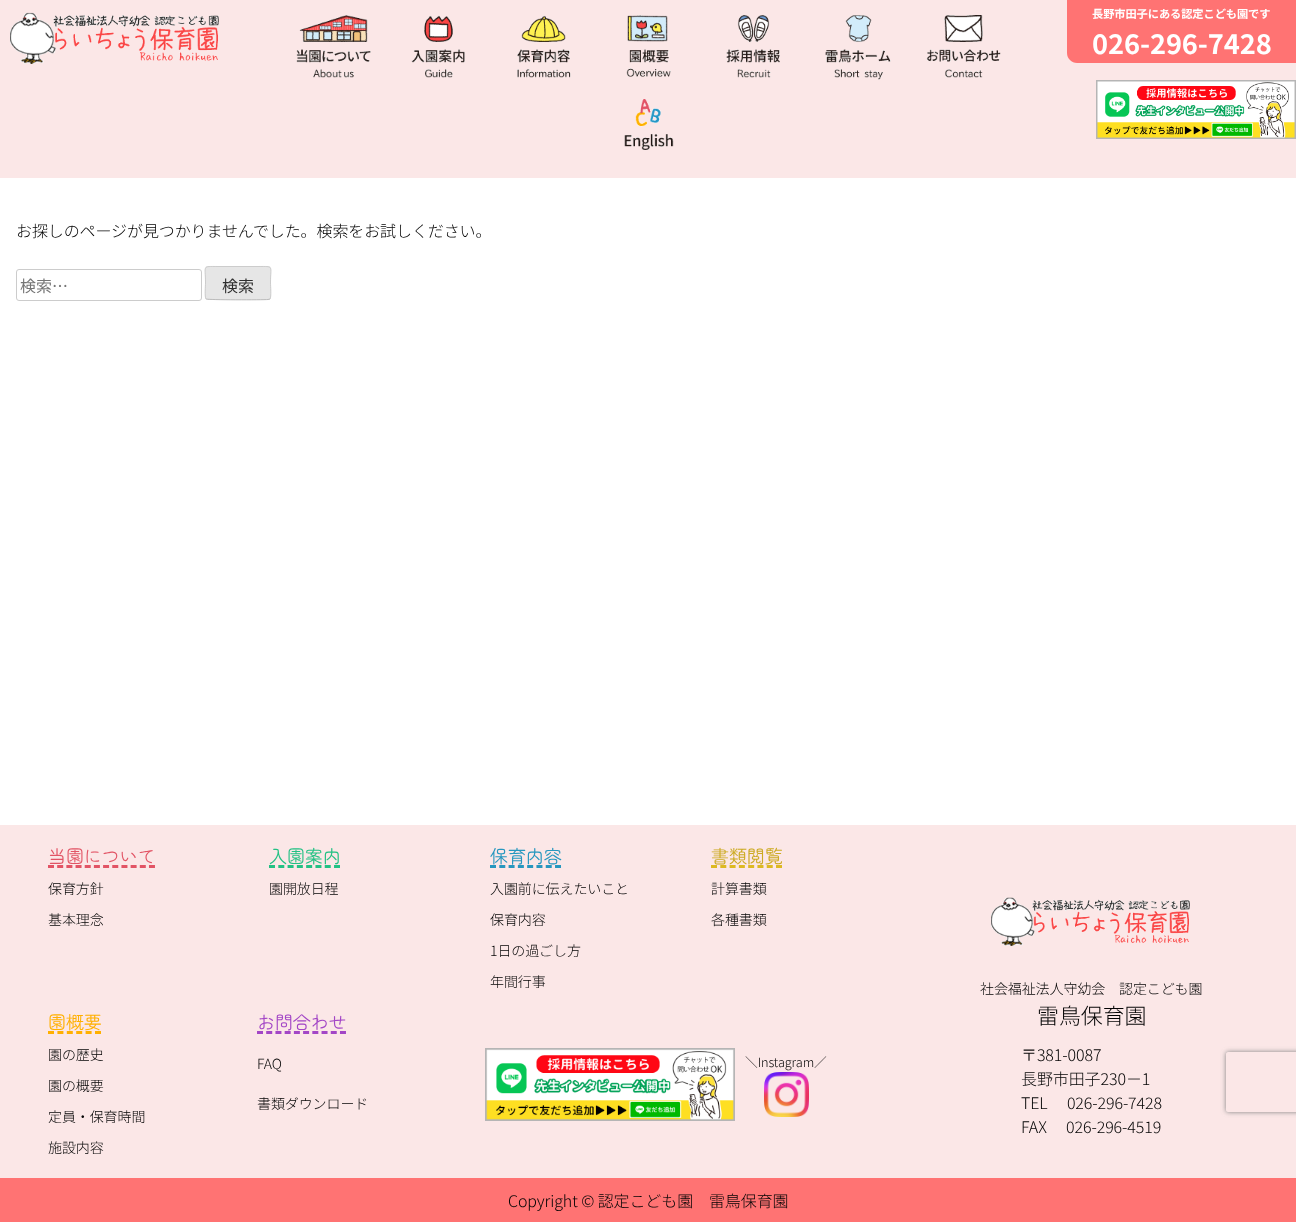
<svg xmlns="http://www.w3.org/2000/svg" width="1296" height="1222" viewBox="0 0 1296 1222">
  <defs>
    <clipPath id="clip1"><path d="M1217 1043H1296V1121H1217ZM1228 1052H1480C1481 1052 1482 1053 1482 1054V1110C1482 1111 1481 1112 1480 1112H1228C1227 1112 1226 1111 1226 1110V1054C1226 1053 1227 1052 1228 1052Z" clip-rule="evenodd"/></clipPath>
    <filter id="blur1" x="-50%" y="-200%" width="200%" height="500%"><feGaussianBlur stdDeviation="2.5"/></filter>
  </defs>
  <rect width="100%" height="100%" fill="#ffffff"/>
  <rect x="0" y="0" width="1296" height="178" fill="#fbe7e7"/>
  <image x="10" y="12" width="209" height="52" href="img1.png"/>
  <image x="296" y="15" width="75" height="63" href="img2.png"/>
  <image x="411" y="15" width="54" height="63" href="img3.png"/>
  <image x="517" y="15" width="54" height="63" href="img4.png"/>
  <image x="626" y="15" width="45" height="62" href="img5.png"/>
  <image x="726" y="15" width="54" height="63" href="img6.png"/>
  <image x="825" y="15" width="66" height="65" href="img7.png"/>
  <image x="926" y="15" width="75" height="63" href="img8.png"/>
  <image x="624" y="99" width="50" height="51" href="img9.png"/>
  <path d="M1067 0H1296V63H1077C1071.5 63 1067 58.5 1067 53Z" fill="#ff7373"/>
  <text x="1092" y="18" font-family="Noto Sans JP" font-size="11.25" font-weight="bold" letter-spacing="-0.1" fill="#ffffff">長野市田子にある認定こども園です</text>
  <text x="1092" y="54" font-family="Noto Sans JP" font-size="27.25" font-weight="bold" letter-spacing="-0.1" fill="#ffffff">026-296-7428</text>
  <image x="1096" y="80" width="200" height="59" href="img10.png"/>
  <text x="16" y="237" font-family="Noto Sans JP" font-size="16" font-weight="300" letter-spacing="-0.1" fill="#040404">お探しのページが見つかりませんでした。検索をお試しください。</text>
  <rect x="16.5" y="269.5" width="185" height="31" rx="2.5" fill="none" stroke="#cccccc"/>
  <text x="20" y="292" font-family="Noto Sans JP" font-size="16" fill="#757575">検索…</text>
  <rect x="205" y="266" width="66" height="34" rx="3" fill="#e6e6e6"/>
  <path d="M270 299L268 299.5C263 300 207.5 300 206.5 299H206" fill="none" stroke="#bbbbbb"/>
  <path d="M206 299C204.5 297 205.5 285.5 205.5 283C205.5 265 201.5 266.5 218 266.5H258C274.5 266.5 270.5 265 270.5 283C270.5 285.5 271.5 297 270 299" fill="none" stroke="#cccccc"/>
  <text x="222" y="292" font-family="Noto Sans JP" font-size="16" fill="#2e2e2e">検索</text>
  <rect x="0" y="825" width="1296" height="353" fill="#fbe7e7"/>
  <path d="M48 866.5H155" fill="none" stroke="#e25465" stroke-width="3" stroke-dasharray="6 3.18"/>
  <text x="48" y="863" font-family="Zen Maru Gothic" font-size="18" letter-spacing="-0.1" fill="#e25465">当園について</text>
  <text x="48" y="894" font-family="Noto Sans JP" font-size="14" font-weight="300" letter-spacing="-0.1" fill="#040404">保育方針</text>
  <text x="48" y="925" font-family="Noto Sans JP" font-size="14" font-weight="300" letter-spacing="-0.1" fill="#040404">基本理念</text>
  <path d="M269 866.5H340" fill="none" stroke="#23c184" stroke-width="3" stroke-dasharray="6 3.29"/>
  <text x="269" y="863" font-family="Zen Maru Gothic" font-size="18" letter-spacing="-0.1" fill="#23c184">入園案内</text>
  <text x="269" y="894" font-family="Noto Sans JP" font-size="14" font-weight="300" letter-spacing="-0.1" fill="#040404">園開放日程</text>
  <path d="M490 866.5H561" fill="none" stroke="#2697bf" stroke-width="3" stroke-dasharray="6 3.29"/>
  <text x="490" y="863" font-family="Zen Maru Gothic" font-size="18" letter-spacing="-0.1" fill="#2697bf">保育内容</text>
  <text x="490" y="894" font-family="Noto Sans JP" font-size="14" font-weight="300" letter-spacing="-0.1" fill="#040404">入園前に伝えたいこと</text>
  <text x="490" y="925" font-family="Noto Sans JP" font-size="14" font-weight="300" letter-spacing="-0.1" fill="#040404">保育内容</text>
  <text x="490" y="956" font-family="Noto Sans JP" font-size="14" font-weight="300" letter-spacing="-0.1" fill="#040404">1日の過ごし方</text>
  <text x="490" y="987" font-family="Noto Sans JP" font-size="14" font-weight="300" letter-spacing="-0.1" fill="#040404">年間行事</text>
  <path d="M711 866.5H782" fill="none" stroke="#ddb922" stroke-width="3" stroke-dasharray="6 3.29"/>
  <text x="711" y="863" font-family="Zen Maru Gothic" font-size="18" letter-spacing="-0.1" fill="#ccaa21">書類閲覧</text>
  <text x="711" y="894" font-family="Noto Sans JP" font-size="14" font-weight="300" letter-spacing="-0.1" fill="#040404">計算書類</text>
  <text x="711" y="925" font-family="Noto Sans JP" font-size="14" font-weight="300" letter-spacing="-0.1" fill="#040404">各種書類</text>
  <path d="M48 1032.5H101" fill="none" stroke="#ffb000" stroke-width="3" stroke-dasharray="6 3.4"/>
  <text x="48" y="1029" font-family="Zen Maru Gothic" font-size="18" letter-spacing="-0.1" fill="#ffb000">園概要</text>
  <text x="48" y="1060" font-family="Noto Sans JP" font-size="14" font-weight="300" letter-spacing="-0.1" fill="#040404">園の歴史</text>
  <text x="48" y="1091" font-family="Noto Sans JP" font-size="14" font-weight="300" letter-spacing="-0.1" fill="#040404">園の概要</text>
  <text x="48" y="1122" font-family="Noto Sans JP" font-size="14" font-weight="300" letter-spacing="-0.1" fill="#040404">定員・保育時間</text>
  <text x="48" y="1153" font-family="Noto Sans JP" font-size="14" font-weight="300" letter-spacing="-0.1" fill="#040404">施設内容</text>
  <path d="M257 1032.5H346" fill="none" stroke="#a346c6" stroke-width="3" stroke-dasharray="6 3.22"/>
  <text x="257" y="1029" font-family="Zen Maru Gothic" font-size="18" letter-spacing="-0.1" fill="#a346c6">お問合わせ</text>
  <text x="257" y="1069" font-family="Noto Sans JP" font-size="14" font-weight="300" letter-spacing="-0.1" fill="#040404">FAQ</text>
  <text x="257" y="1109" font-family="Noto Sans JP" font-size="14" font-weight="300" letter-spacing="-0.1" fill="#040404">書類ダウンロード</text>
  <image x="485" y="1048" width="250" height="73" href="img11.png"/>
  <text x="745" y="1067" font-family="Noto Sans JP" font-size="12.75" font-weight="300" letter-spacing="-0.1" fill="#040404">＼Instagram／</text>
  <image x="764" y="1072" width="45" height="45" href="img12.png"/>
  <image x="991" y="897" width="199" height="49" href="img13.png"/>
  <text x="980" y="994" font-family="Noto Sans JP" font-size="14" font-weight="300" letter-spacing="-0.1" fill="#040404">社会福祉法人守幼会　認定こども園</text>
  <text x="1037" y="1024" font-family="Noto Sans JP" font-size="22" font-weight="300" letter-spacing="-0.1" fill="#040404">雷鳥保育園</text>
  <text x="1021" y="1061" font-family="Noto Sans JP" font-size="16" font-weight="300" letter-spacing="-0.1" fill="#040404">〒381-0087</text>
  <text x="1021" y="1085" font-family="Noto Sans JP" font-size="16" font-weight="300" letter-spacing="-0.1" fill="#040404">長野市田子230－1</text>
  <text x="1021" y="1109" font-family="Noto Sans JP" font-size="16" font-weight="300" letter-spacing="-0.1" fill="#040404">TEL 　026-296-7428</text>
  <text x="1021" y="1133" font-family="Noto Sans JP" font-size="16" font-weight="300" letter-spacing="-0.1" fill="#040404">FAX 　026-296-4519</text>
  <rect x="0" y="1178" width="1296" height="44" fill="#ff7373"/>
  <text x="508" y="1207" font-family="Noto Sans JP" font-size="16" font-weight="300" letter-spacing="-0.1" fill="#040404">Copyright © 認定こども園　雷鳥保育園</text>
  <g clip-path="url(#clip1)">
    <rect x="1226" y="1052" width="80" height="60" rx="2" fill="#808080" filter="url(#blur1)"/>
  </g>
</svg>
